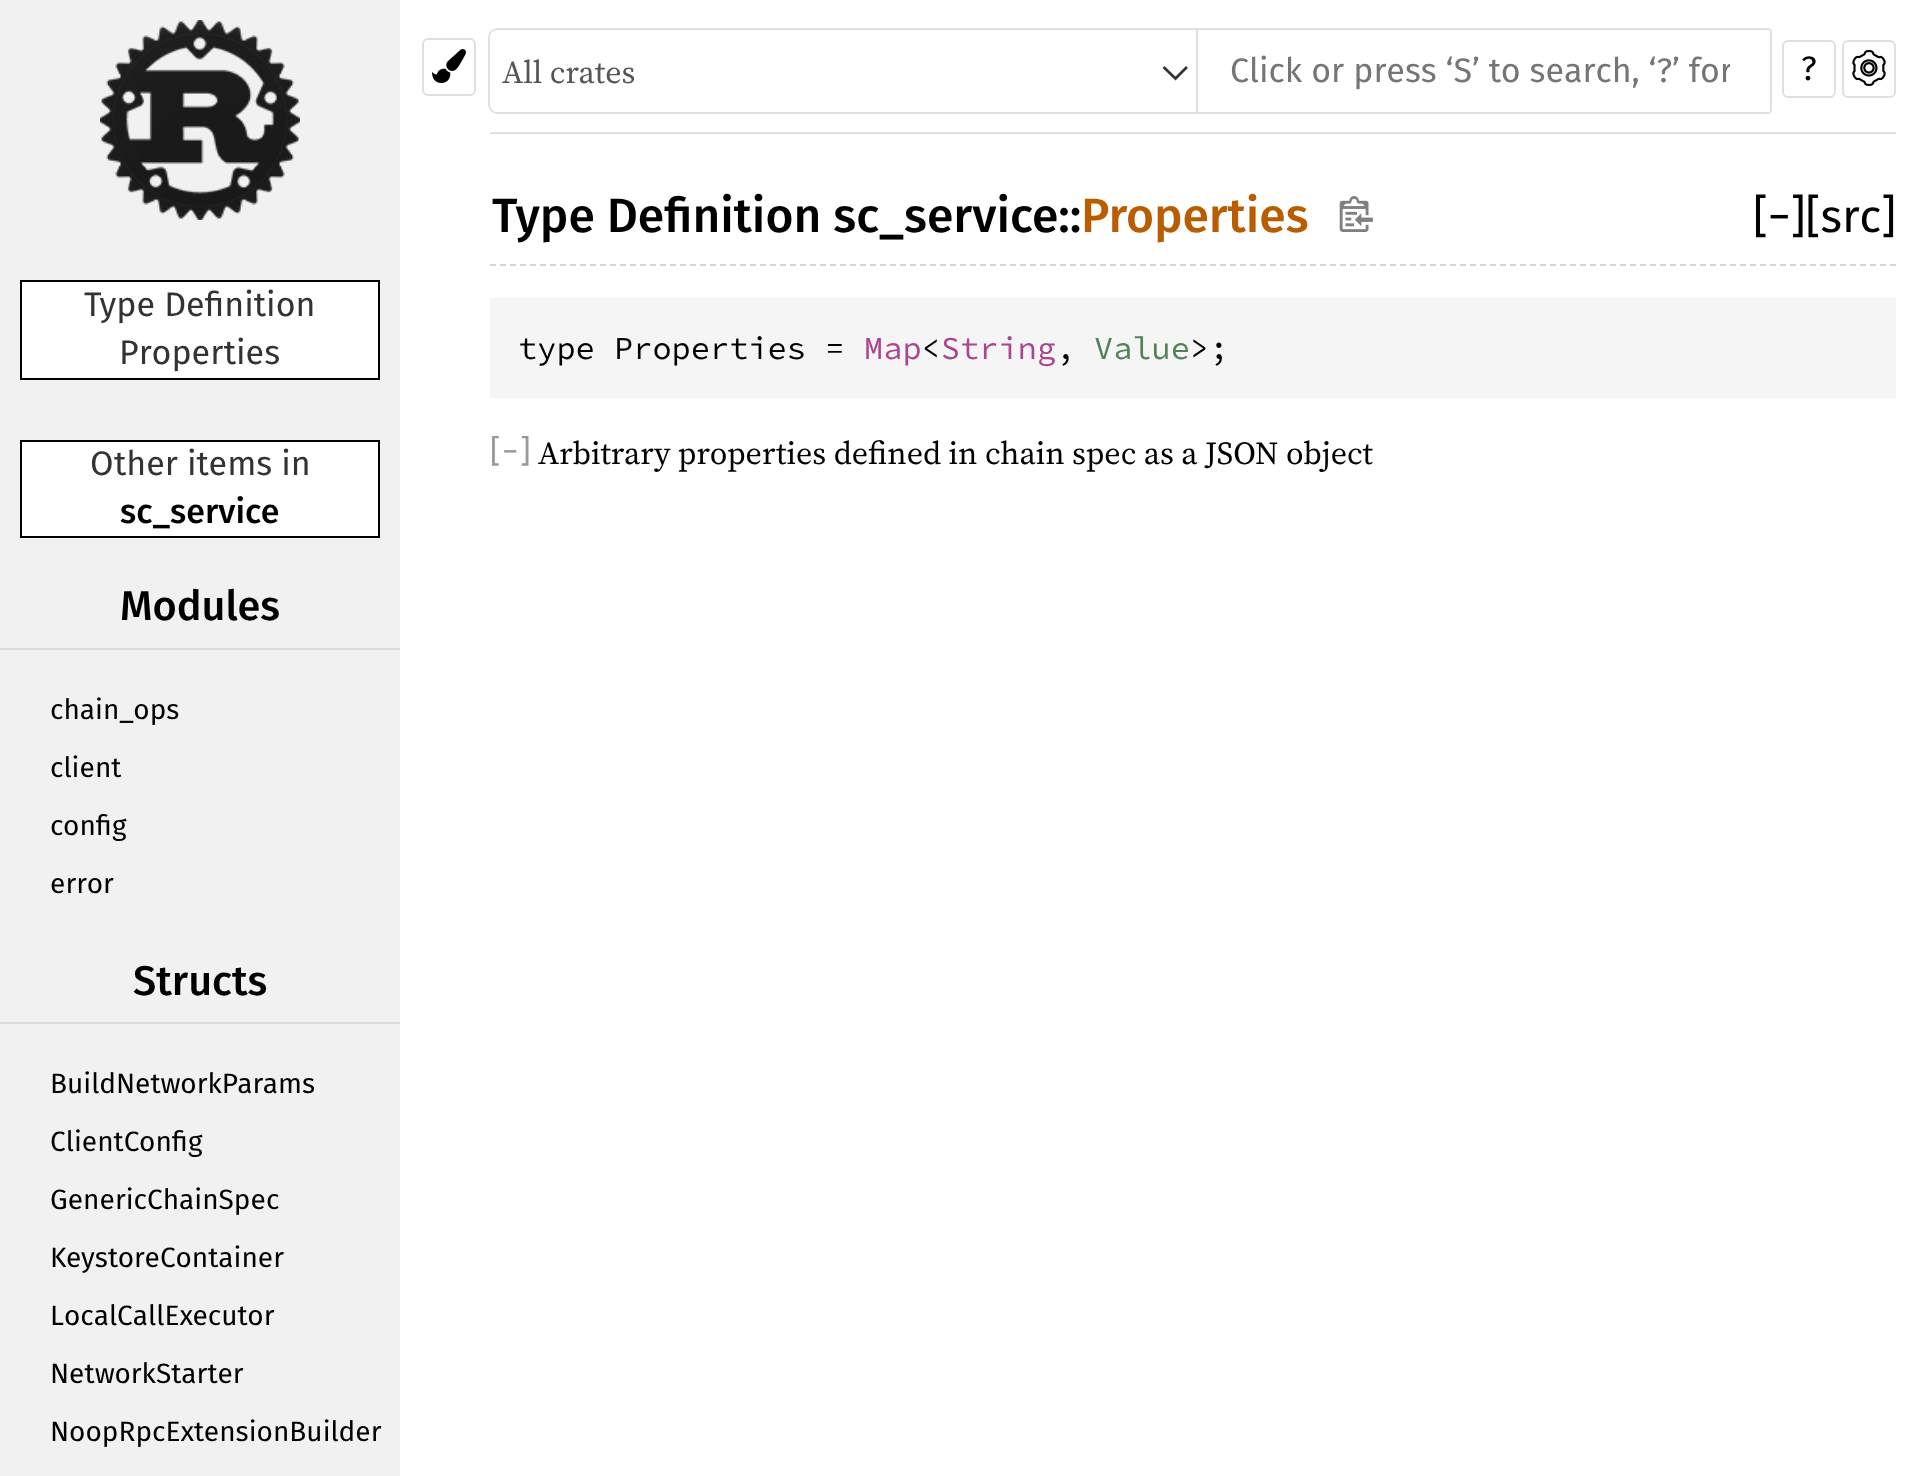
<svg xmlns="http://www.w3.org/2000/svg" width="1925" height="1476" viewBox="0 0 1925 1476">
  <defs>
    <clipPath id="clip1"><rect x="1230" y="50" width="500" height="42"/></clipPath>
  </defs>
  <rect width="100%" height="100%" fill="#ffffff"/>
  <rect x="423" y="39" width="52" height="56" rx="5" fill="none" stroke="#e0e0e0" stroke-width="2"/>
  <image x="432" y="49" width="34" height="34" href="img1.png"/>
  <rect x="490" y="132" width="1406" height="2" fill="#e0e0e0"/>
  <path d="M498 29H1199V113H498C493 113 489 109 489 104V38C489 33 493 29 498 29Z" fill="none" stroke="#e0e0e0" stroke-width="2"/>
  <path d="M498 30H1198V112H498C493.5 112 490 108.5 490 104V38C490 33.5 493.5 30 498 30Z" fill="#ffffff"/>
  <path d="M1186 68L1175.5 78.5M1175.5 78.5L1164.5 68" fill="none" stroke="#2f3435" stroke-width="2.7" stroke-linecap="square"/>
  <text x="502" y="83" font-family="'Source Serif 4'" font-size="32" fill="#555555">All crates</text>
  <path d="M1197 29H1768C1769.5 29 1771 30.5 1771 32V110C1771 111.5 1769.5 113 1768 113H1197Z" fill="none" stroke="#e0e0e0" stroke-width="2"/>
  <path d="M1198 30H1768C1769 30 1770 31 1770 32V110C1770 111 1769 112 1768 112H1198Z" fill="#ffffff"/>
  <g clip-path="url(#clip1)">
    <text x="1230" y="82" font-family="Fira Sans" font-size="34" fill="#757575">Click or press ‘S’ to search, ‘?’ for</text>
  </g>
  <rect x="1783" y="41" width="52" height="56" rx="5" fill="none" stroke="#e0e0e0" stroke-width="2"/>
  <text x="1801" y="80" font-family="Fira Sans" font-size="34" fill="#000000">?</text>
  <rect x="1843" y="41" width="52" height="56" rx="5" fill="none" stroke="#e0e0e0" stroke-width="2"/>
  <image x="1852" y="50" width="34" height="36" href="img2.png"/>
  <rect x="0" y="0" width="400" height="1476" fill="#f1f1f1"/>
  <image x="100" y="20" width="200" height="200" href="img3.png"/>
  <rect x="21" y="281" width="358" height="98" fill="#ffffff" stroke="#000000" stroke-width="2"/>
  <text x="84" y="316" font-family="Fira Sans" font-size="34" fill="#333333">Type Definition</text>
  <text x="119" y="364" font-family="Fira Sans" font-size="34" fill="#333333">Properties</text>
  <rect x="21" y="441" width="358" height="96" fill="#ffffff" stroke="#000000" stroke-width="2"/>
  <text x="90" y="475" font-family="Fira Sans" font-size="34" fill="#333333">Other items in</text>
  <text x="120" y="523" font-family="Fira Sans" font-size="34" font-weight="500" fill="#000000">sc_service</text>
  <rect x="0" y="648" width="400" height="2" fill="#dddddd"/>
  <text x="120" y="620" font-family="Fira Sans" font-size="41.5" font-weight="500" fill="#000000">Modules</text>
  <text x="50" y="719" font-family="Fira Sans" font-size="28" fill="#000000">chain_ops</text>
  <text x="50" y="777" font-family="Fira Sans" font-size="28" fill="#000000">client</text>
  <text x="50" y="835" font-family="Fira Sans" font-size="28" fill="#000000">config</text>
  <text x="50" y="893" font-family="Fira Sans" font-size="28" fill="#000000">error</text>
  <rect x="0" y="1022" width="400" height="2" fill="#dddddd"/>
  <text x="133" y="995" font-family="Fira Sans" font-size="41.5" font-weight="500" fill="#000000">Structs</text>
  <text x="50" y="1093" font-family="Fira Sans" font-size="28" fill="#000000">BuildNetworkParams</text>
  <text x="50" y="1151" font-family="Fira Sans" font-size="28" fill="#000000">ClientConfig</text>
  <text x="50" y="1209" font-family="Fira Sans" font-size="28" fill="#000000">GenericChainSpec</text>
  <text x="50" y="1267" font-family="Fira Sans" font-size="28" fill="#000000">KeystoreContainer</text>
  <text x="50" y="1325" font-family="Fira Sans" font-size="28" fill="#000000">LocalCallExecutor</text>
  <text x="50" y="1383" font-family="Fira Sans" font-size="28" fill="#000000">NetworkStarter</text>
  <text x="50" y="1441" font-family="Fira Sans" font-size="28" fill="#000000">NoopRpcExtensionBuilder</text>
  <path d="M490 265H1896" fill="none" stroke="#d5d5d5" stroke-width="2" stroke-dasharray="6 4"/>
  <text x="492" y="232" font-family="Fira Sans" font-size="48" font-weight="500" fill="#000000">Type Definition sc_service::</text>
  <text x="1081" y="232" font-family="Fira Sans" font-size="48" font-weight="500" fill="#ba5d00">Properties</text>
  <image x="1339" y="196" width="34" height="36" href="img4.png"/>
  <text x="1753" y="232" font-family="Fira Sans" font-size="46" fill="#000000">[−][src]</text>
  <rect x="490" y="298" width="1406" height="100" fill="#f5f5f5"/>
  <text x="518" y="359" font-family="Source Code Pro" font-size="32" fill="#000000">type Properties =</text>
  <text x="864" y="359" font-family="Source Code Pro" font-size="32" fill="#ad448e">Map String</text>
  <text x="1094" y="359" font-family="Source Code Pro" font-size="32" fill="#508157">Value</text>
  <text x="921" y="359" font-family="Source Code Pro" font-size="32" fill="#000000">&lt;</text>
  <text x="1056" y="359" font-family="Source Code Pro" font-size="32" fill="#000000">,</text>
  <text x="1190" y="359" font-family="Source Code Pro" font-size="32" fill="#000000">&gt;;</text>
  <text x="490" y="462" font-family="Fira Sans" font-size="32" letter-spacing="2" fill="#999999">[−]</text>
  <text x="538" y="464" font-family="'Source Serif 4'" font-size="32" fill="#000000">Arbitrary properties defined in chain spec as a JSON object</text>
</svg>
